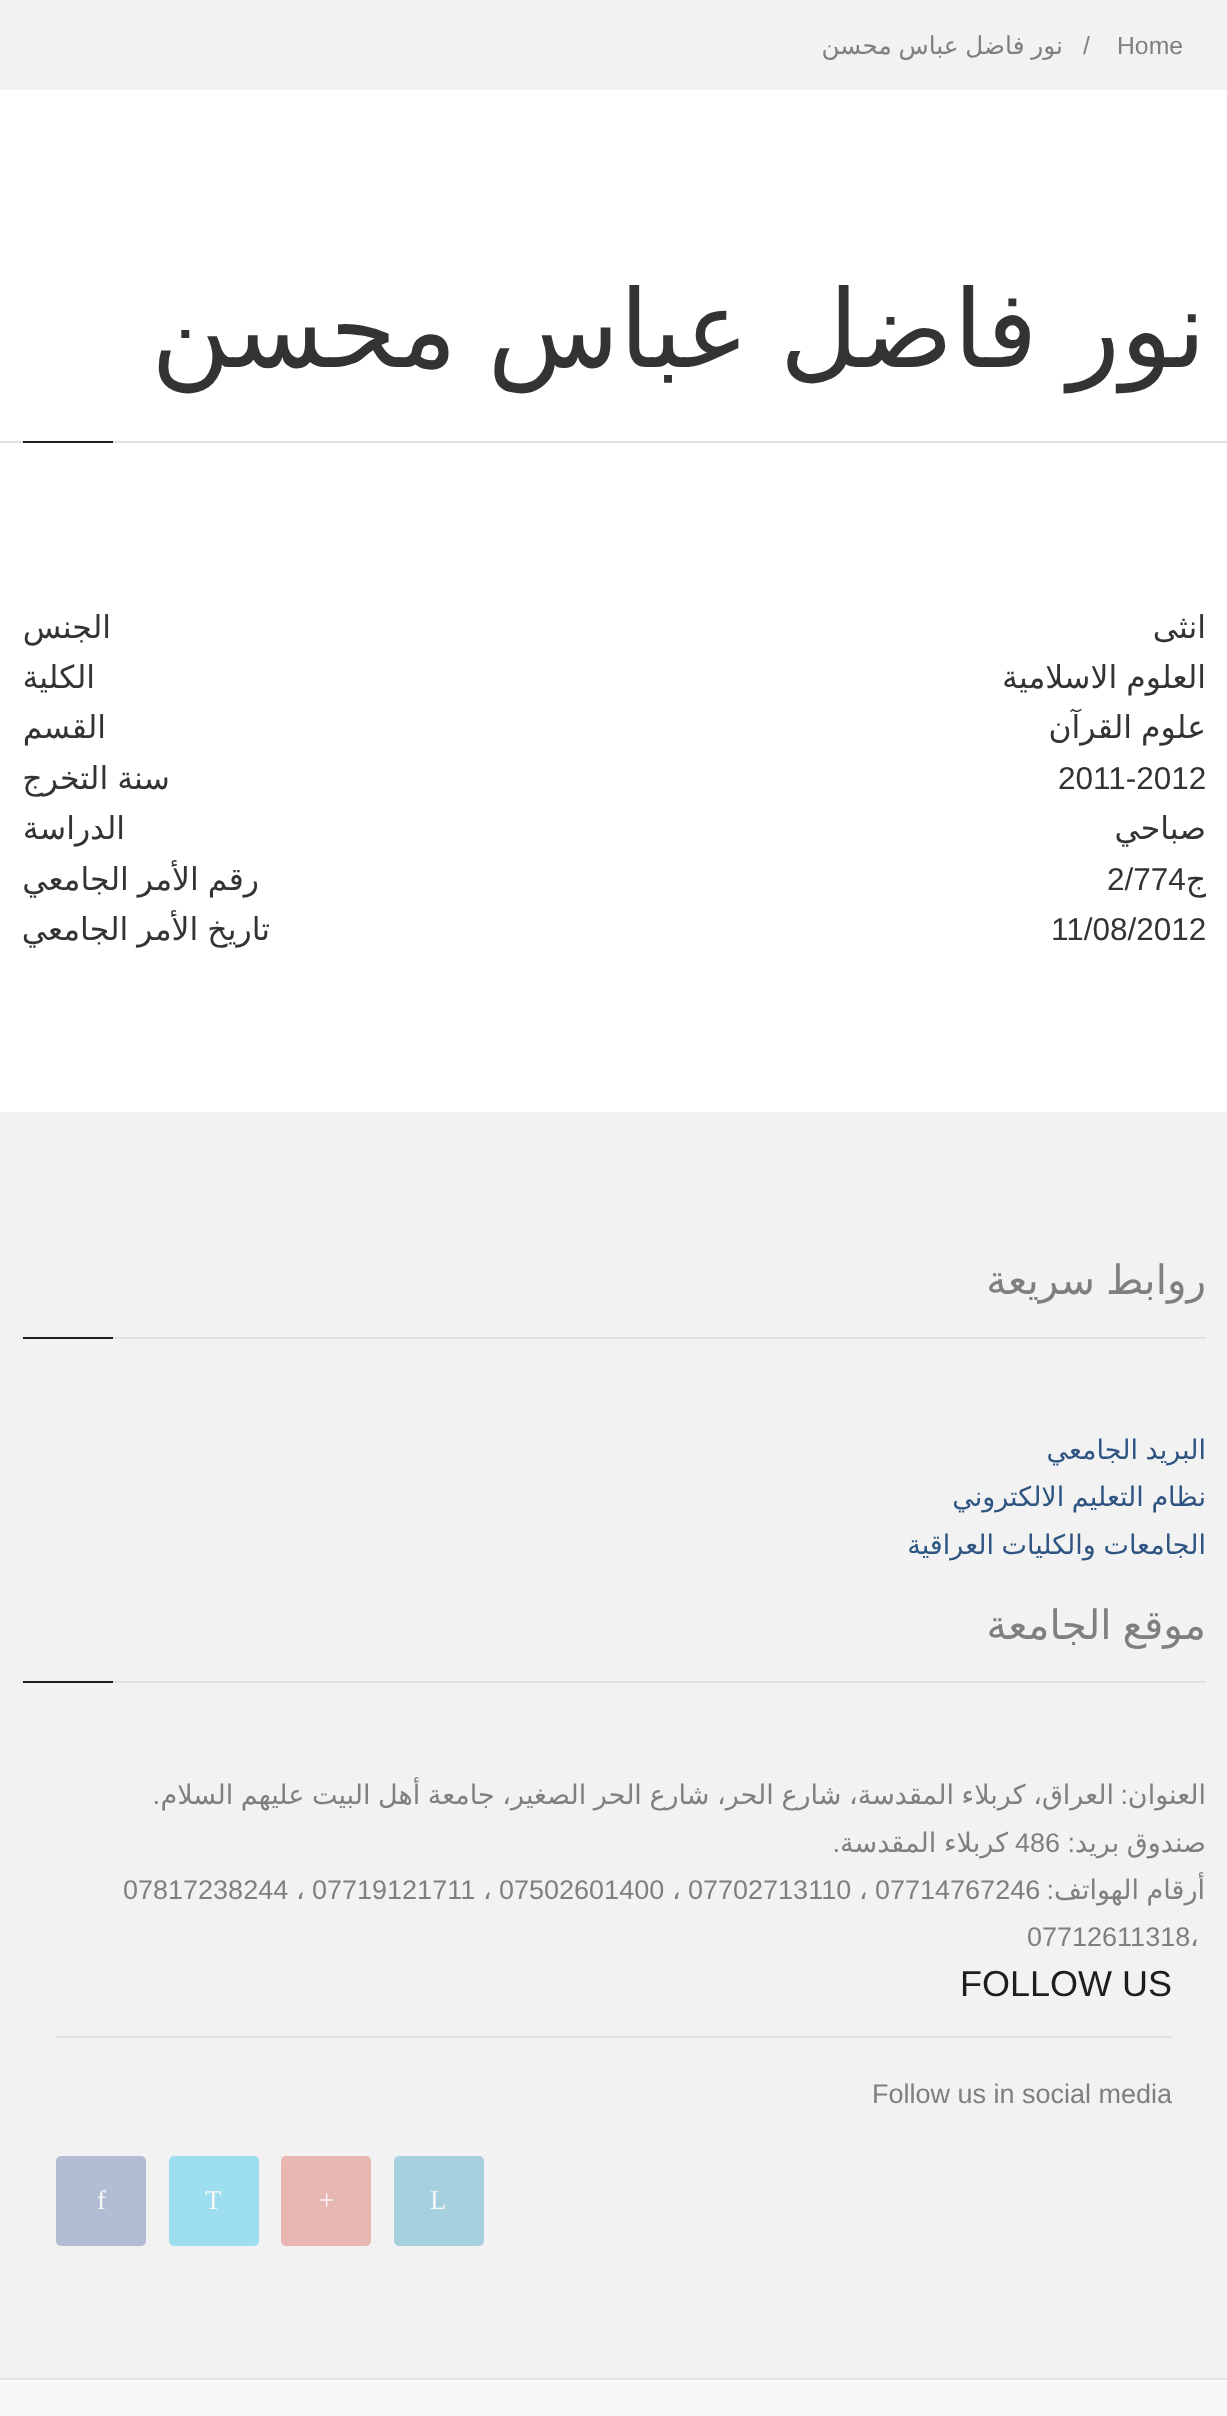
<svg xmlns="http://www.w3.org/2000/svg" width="1227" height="2416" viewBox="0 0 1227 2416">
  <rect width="100%" height="100%" fill="#ffffff"/>
  <rect x="0" y="0" width="1227" height="90" fill="#f2f2f2"/>
  <text x="1117" y="54" font-family="Liberation Sans" font-size="24.75" fill="#7f7f7f">Home</text>
  <text x="1083" y="54" font-family="Liberation Sans" font-size="24.75" fill="#7f7f7f">/</text>
  <text x="1063" y="54" word-spacing="-1" font-family="DejaVu Sans" font-size="24.75" direction="rtl" fill="#7f7f7f">نور فاضل عباس محسن</text>
  <rect x="0" y="441" width="1227" height="2" fill="#e1e1e1"/>
  <text x="1206" y="367" word-spacing="-4" font-family="DejaVu Sans" font-size="108" direction="rtl" fill="#333333">نور فاضل عباس محسن</text>
  <rect x="23" y="441" width="90" height="2" fill="#1e1e1e"/>
  <text x="1206" y="638" font-family="DejaVu Sans" font-size="31.5" direction="rtl" fill="#333333">انثى</text>
  <text x="111" y="638" font-family="DejaVu Sans" font-size="31.5" direction="rtl" fill="#333333">الجنس</text>
  <text x="1206" y="688" word-spacing="-1" font-family="DejaVu Sans" font-size="31.5" direction="rtl" fill="#333333">العلوم الاسلامية</text>
  <text x="95" y="688" font-family="DejaVu Sans" font-size="31.5" direction="rtl" fill="#333333">الكلية</text>
  <text x="1206" y="738" word-spacing="-1" font-family="DejaVu Sans" font-size="31.5" direction="rtl" fill="#333333">علوم القرآن</text>
  <text x="106" y="738" font-family="DejaVu Sans" font-size="31.5" direction="rtl" fill="#333333">القسم</text>
  <text x="1058" y="789" font-family="Liberation Sans" font-size="31.5" fill="#333333">2011-2012</text>
  <text x="170" y="789" word-spacing="-1" font-family="DejaVu Sans" font-size="31.5" direction="rtl" fill="#333333">سنة التخرج</text>
  <text x="1206" y="839" font-family="DejaVu Sans" font-size="31.5" direction="rtl" fill="#333333">صباحي</text>
  <text x="125" y="839" font-family="DejaVu Sans" font-size="31.5" direction="rtl" fill="#333333">الدراسة</text>
  <text x="1206" y="890" font-family="DejaVu Sans" font-size="31.5" direction="rtl" fill="#333333">ج</text>
  <text x="1107" y="890" font-family="Liberation Sans" font-size="31.5" fill="#333333">2/774</text>
  <text x="259" y="890" word-spacing="-1" font-family="DejaVu Sans" font-size="31.5" direction="rtl" fill="#333333">رقم الأمر الجامعي</text>
  <text x="1051" y="940" font-family="Liberation Sans" font-size="31.5" fill="#333333">11/08/2012</text>
  <text x="270" y="940" word-spacing="-1" font-family="DejaVu Sans" font-size="31.5" direction="rtl" fill="#333333">تاريخ الأمر الجامعي</text>
  <rect x="0" y="1112" width="1227" height="1266" fill="#f2f2f2"/>
  <rect x="113" y="1337" width="1093" height="2" fill="#e1e1e1"/>
  <text x="1206" y="1294" word-spacing="-2" font-family="DejaVu Sans" font-size="40.5" direction="rtl" fill="#7f7f7f">روابط سريعة</text>
  <rect x="23" y="1337" width="90" height="2" fill="#1e1e1e"/>
  <text x="1206" y="1459" word-spacing="-1" font-family="DejaVu Sans" font-size="27" direction="rtl" fill="#2e5481">البريد الجامعي</text>
  <text x="1206" y="1506" word-spacing="-1" font-family="DejaVu Sans" font-size="27" direction="rtl" fill="#2e5481">نظام التعليم الالكتروني</text>
  <text x="1206" y="1554" word-spacing="-1" font-family="DejaVu Sans" font-size="27" direction="rtl" fill="#2e5481">الجامعات والكليات العراقية</text>
  <rect x="113" y="1681" width="1093" height="2" fill="#e1e1e1"/>
  <text x="1206" y="1639" word-spacing="-2" font-family="DejaVu Sans" font-size="40.5" direction="rtl" fill="#7f7f7f">موقع الجامعة</text>
  <rect x="23" y="1681" width="90" height="2" fill="#1e1e1e"/>
  <text x="1206" y="1804" font-family="DejaVu Sans" font-size="27" direction="rtl" fill="#7f7f7f">العنوان</text>
  <text x="1114" y="1804" word-spacing="-1" font-family="DejaVu Sans" font-size="27" direction="rtl" fill="#7f7f7f">العراق، كربلاء المقدسة، شارع الحر، شارع الحر الصغير، جامعة أهل البيت عليهم السلام</text>
  <text x="1128" y="1804" font-family="Liberation Sans" font-size="27" direction="rtl" fill="#7f7f7f">:</text>
  <text x="160" y="1804" font-family="Liberation Sans" font-size="27" direction="rtl" fill="#7f7f7f">.</text>
  <text x="1206" y="1852" word-spacing="-1" font-family="DejaVu Sans" font-size="27" direction="rtl" fill="#7f7f7f">صندوق بريد</text>
  <text x="1075" y="1852" font-family="Liberation Sans" font-size="27" direction="rtl" fill="#7f7f7f">:</text>
  <text x="1015" y="1852" font-family="Liberation Sans" font-size="27" fill="#7f7f7f">486</text>
  <text x="1008" y="1852" word-spacing="-1" font-family="DejaVu Sans" font-size="27" direction="rtl" fill="#7f7f7f">كربلاء المقدسة</text>
  <text x="840" y="1852" font-family="Liberation Sans" font-size="27" direction="rtl" fill="#7f7f7f">.</text>
  <text x="1205" y="1899" word-spacing="-1" font-family="DejaVu Sans" font-size="27" direction="rtl" fill="#7f7f7f">أرقام الهواتف</text>
  <text x="1054" y="1899" font-family="Liberation Sans" font-size="27" direction="rtl" fill="#7f7f7f">:</text>
  <text x="875" y="1899" font-family="Liberation Sans" font-size="27" fill="#7f7f7f">07714767246</text>
  <text x="859" y="1899" font-family="DejaVu Sans" font-size="27" fill="#7f7f7f">،</text>
  <text x="688" y="1899" font-family="Liberation Sans" font-size="27" fill="#7f7f7f">07702713110</text>
  <text x="672" y="1899" font-family="DejaVu Sans" font-size="27" fill="#7f7f7f">،</text>
  <text x="499" y="1899" font-family="Liberation Sans" font-size="27" fill="#7f7f7f">07502601400</text>
  <text x="483" y="1899" font-family="DejaVu Sans" font-size="27" fill="#7f7f7f">،</text>
  <text x="312" y="1899" font-family="Liberation Sans" font-size="27" fill="#7f7f7f">07719121711</text>
  <text x="296" y="1899" font-family="DejaVu Sans" font-size="27" fill="#7f7f7f">،</text>
  <text x="123" y="1899" font-family="Liberation Sans" font-size="27" fill="#7f7f7f">07817238244</text>
  <text x="1190" y="1946" font-family="DejaVu Sans" font-size="27" fill="#7f7f7f">،</text>
  <text x="1027" y="1946" font-family="Liberation Sans" font-size="27" fill="#7f7f7f">07712611318</text>
  <rect x="56" y="2036" width="1116" height="2" fill="#e1e1e1"/>
  <text x="960" y="1996" font-family="Liberation Sans" font-size="36" fill="#1e1e1e">FOLLOW US</text>
  <text x="872" y="2103" font-family="Liberation Sans" font-size="27" fill="#7f7f7f">Follow us in social media</text>
  <rect x="394" y="2156" width="90" height="90" rx="5" fill="#a7d0df"/>
  <text x="430" y="2209" font-family="Liberation Serif" font-size="27" fill="#f7f7f7">L</text>
  <rect x="281" y="2156" width="90" height="90" rx="5" fill="#e9b7b1"/>
  <text x="319" y="2209" font-family="Liberation Serif" font-size="27" fill="#f7f7f7">+</text>
  <rect x="169" y="2156" width="90" height="90" rx="5" fill="#9ddff0"/>
  <text x="205" y="2209" font-family="Liberation Serif" font-size="27" fill="#f7f7f7">T</text>
  <rect x="56" y="2156" width="90" height="90" rx="5" fill="#b2bcd2"/>
  <text x="97" y="2209" font-family="Liberation Serif" font-size="27" fill="#f7f7f7">f</text>
  <rect x="0" y="2381" width="1227" height="35" fill="#f7f7f7"/>
  <rect x="0" y="2378" width="1227" height="2" fill="#e1e1e1"/>
</svg>
